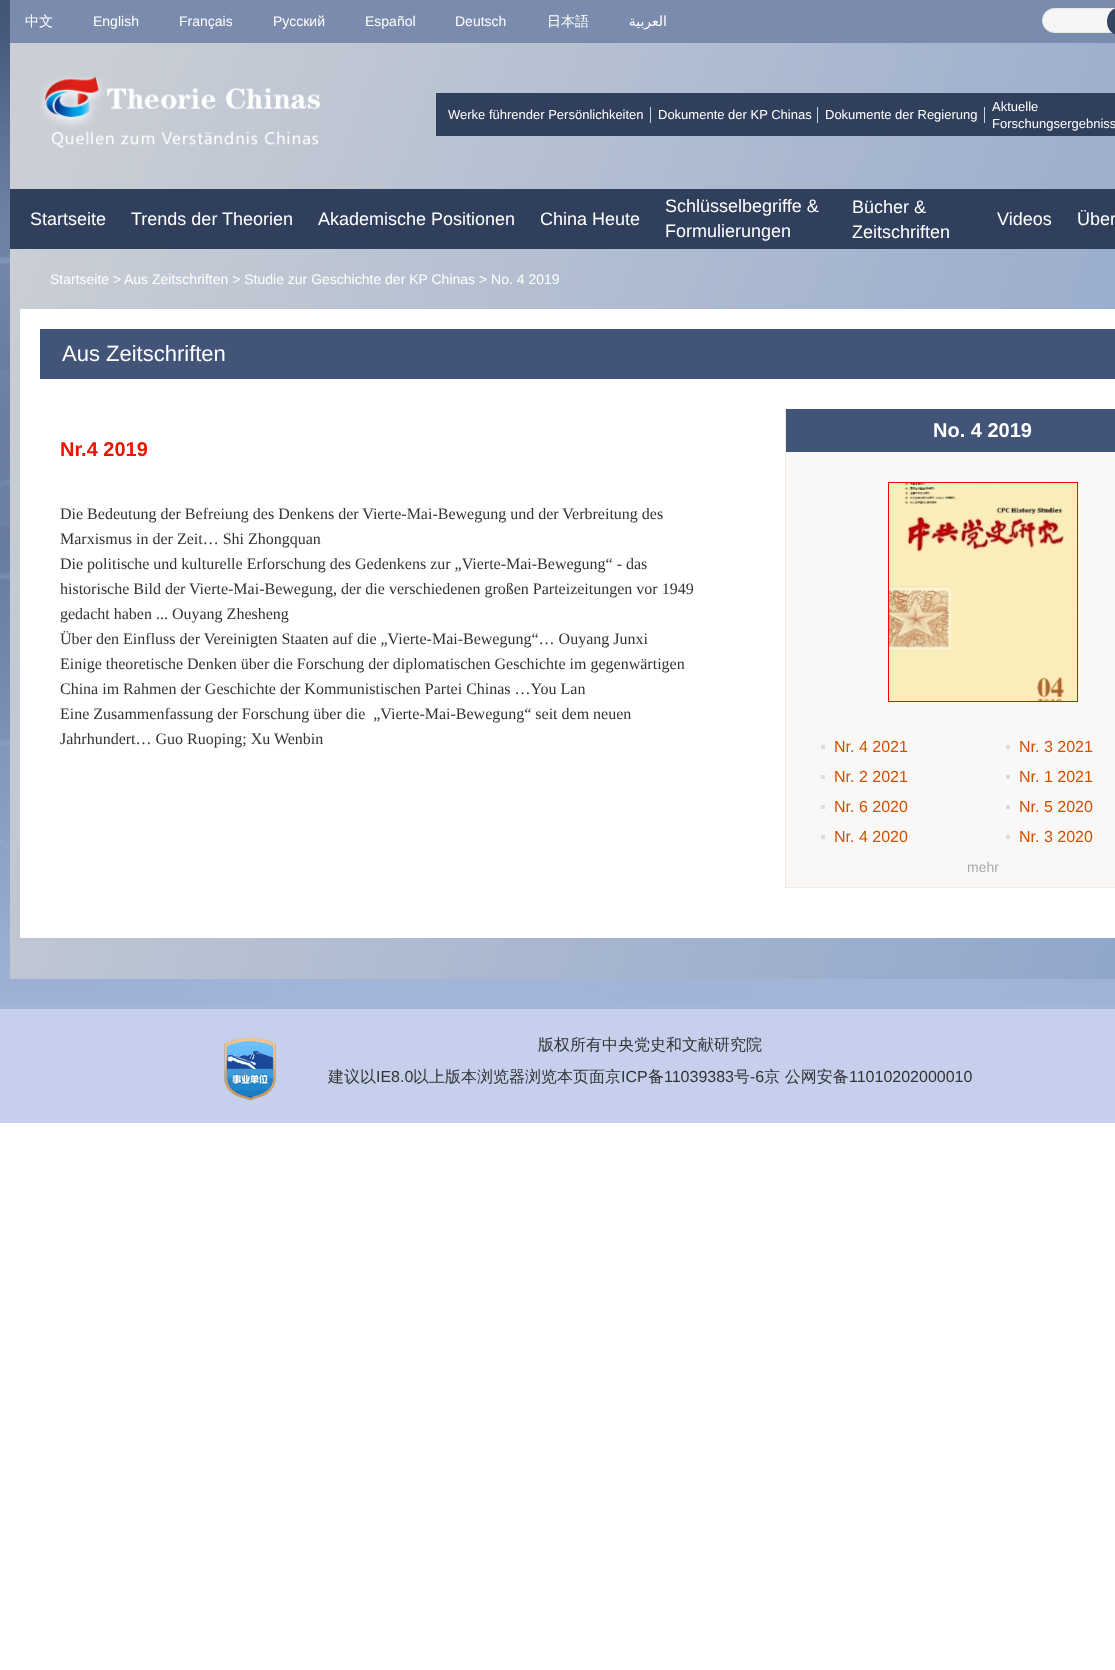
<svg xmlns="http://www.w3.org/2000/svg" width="1115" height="1670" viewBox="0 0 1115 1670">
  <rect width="100%" height="100%" fill="#ffffff"/>
  <rect x="0" y="1004" width="1115" height="5" fill="#a3b6da"/>
  <image x="0" y="0" width="1115" height="1004" href="img1.png"/>
  <image x="10" y="43" width="1105" height="936" href="img2.png"/>
  <rect x="10" y="0" width="1105" height="43" fill="#7a8bad"/>
  <text x="25" y="26" font-family="WenQuanYi Zen Hei" font-size="14" font-weight="500" fill="#ffffff">中文</text>
  <text x="93" y="26" font-family="Liberation Sans" font-size="14" fill="#ffffff">English</text>
  <text x="179" y="26" font-family="Liberation Sans" font-size="14" fill="#ffffff">Français</text>
  <text x="273" y="26" font-family="Liberation Sans" font-size="14" fill="#ffffff">Pусский</text>
  <text x="365" y="26" font-family="Liberation Sans" font-size="14" fill="#ffffff">Español</text>
  <text x="455" y="26" font-family="Liberation Sans" font-size="14" fill="#ffffff">Deutsch</text>
  <text x="547" y="26" font-family="WenQuanYi Zen Hei" font-size="14" font-weight="500" fill="#ffffff">日本語</text>
  <text x="667" y="26" font-family="DejaVu Sans" font-size="14" direction="rtl" fill="#ffffff">العربية</text>
  <rect x="1042.5" y="8.5" width="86" height="24" rx="12" fill="#f5f5f5" stroke="#e7e7e7"/>
  <rect x="1107" y="8" width="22" height="27" rx="13.5" fill="#354461"/>
  <image x="40" y="76" width="280" height="72" href="img3.png"/>
  <rect x="436" y="93" width="679" height="43" fill="#303f5c"/>
  <rect x="650" y="107" width="1" height="16" fill="#cbd7de"/>
  <text x="448" y="119" font-family="Liberation Sans" font-size="13" fill="#ffffff">Werke führender Persönlichkeiten</text>
  <rect x="817" y="107" width="1" height="16" fill="#cbd7de"/>
  <text x="658" y="119" font-family="Liberation Sans" font-size="13" fill="#ffffff">Dokumente der KP Chinas</text>
  <rect x="984" y="107" width="1" height="16" fill="#cbd7de"/>
  <text x="825" y="119" font-family="Liberation Sans" font-size="13" fill="#ffffff">Dokumente der Regierung</text>
  <text x="992" y="111" font-family="Liberation Sans" font-size="13" fill="#ffffff">Aktuelle</text>
  <text x="992" y="128" font-family="Liberation Sans" font-size="13" fill="#ffffff">Forschungsergebniss</text>
  <rect x="10" y="189" width="1105" height="60" fill="#303f5c"/>
  <text x="30" y="225" font-family="Liberation Sans" font-size="18" fill="#ffffff">Startseite</text>
  <text x="131" y="225" font-family="Liberation Sans" font-size="18" fill="#ffffff">Trends der Theorien</text>
  <text x="318" y="225" font-family="Liberation Sans" font-size="18" fill="#ffffff">Akademische Positionen</text>
  <text x="540" y="225" font-family="Liberation Sans" font-size="18" fill="#ffffff">China Heute</text>
  <text x="665" y="212" font-family="Liberation Sans" font-size="18" fill="#ffffff">Schlüsselbegriffe &amp;</text>
  <text x="665" y="237" font-family="Liberation Sans" font-size="18" fill="#ffffff">Formulierungen</text>
  <text x="852" y="213" font-family="Liberation Sans" font-size="18" fill="#ffffff">Bücher &amp;</text>
  <text x="852" y="238" font-family="Liberation Sans" font-size="18" fill="#ffffff">Zeitschriften</text>
  <text x="997" y="225" font-family="Liberation Sans" font-size="18" fill="#ffffff">Videos</text>
  <text x="1077" y="225" font-family="Liberation Sans" font-size="18" fill="#ffffff">Über</text>
  <text x="50" y="284" font-family="Liberation Sans" font-size="14" fill="#ffffff">Startseite</text>
  <text x="113" y="284" font-family="Liberation Sans" font-size="14" fill="#ffffff">&gt;</text>
  <text x="124" y="284" font-family="Liberation Sans" font-size="14" fill="#ffffff">Aus Zeitschriften &gt; Studie zur Geschichte der KP Chinas &gt; No. 4 2019</text>
  <rect x="20" y="309" width="1095" height="629" fill="#ffffff"/>
  <rect x="40" y="329" width="1075" height="50" fill="#435479"/>
  <text x="62" y="361" font-family="Liberation Sans" font-size="22" fill="#ffffff">Aus Zeitschriften</text>
  <text x="60" y="456" font-family="Liberation Sans" font-size="20" font-weight="bold" fill="#e91500">Nr.4 2019</text>
  <text x="60" y="519" font-family="Liberation Serif" font-size="16" fill="#333333">Die Bedeutung der Befreiung des Denkens der Vierte-Mai-Bewegung und der Verbreitung des</text>
  <text x="60" y="544" font-family="Liberation Serif" font-size="16" fill="#333333">Marxismus in der Zeit… Shi Zhongquan</text>
  <text x="60" y="569" font-family="Liberation Serif" font-size="16" fill="#333333">Die politische und kulturelle Erforschung des Gedenkens zur „Vierte-Mai-Bewegung“ - das</text>
  <text x="60" y="594" font-family="Liberation Serif" font-size="16" fill="#333333">historische Bild der Vierte-Mai-Bewegung, der die verschiedenen großen Parteizeitungen vor 1949</text>
  <text x="60" y="619" font-family="Liberation Serif" font-size="16" fill="#333333">gedacht haben ... Ouyang Zhesheng</text>
  <text x="60" y="644" font-family="Liberation Serif" font-size="16" fill="#333333">Über den Einfluss der Vereinigten Staaten auf die „Vierte-Mai-Bewegung“… Ouyang Junxi</text>
  <text x="60" y="669" font-family="Liberation Serif" font-size="16" fill="#333333">Einige theoretische Denken über die Forschung der diplomatischen Geschichte im gegenwärtigen</text>
  <text x="60" y="694" font-family="Liberation Serif" font-size="16" fill="#333333">China im Rahmen der Geschichte der Kommunistischen Partei Chinas …You Lan</text>
  <text x="60" y="719" font-family="Liberation Serif" font-size="16" fill="#333333" xml:space="preserve">Eine Zusammenfassung der Forschung über die  „Vierte-Mai-Bewegung“ seit dem neuen</text>
  <text x="60" y="744" font-family="Liberation Serif" font-size="16" fill="#333333">Jahrhundert… Guo Ruoping; Xu Wenbin</text>
  <rect x="786" y="452" width="329" height="435" fill="#f9f8f7"/>
  <rect x="785" y="887" width="330" height="1" fill="#f0ebe5"/>
  <rect x="785" y="409" width="1" height="479" fill="#f0ebe5"/>
  <rect x="786" y="409" width="329" height="43" fill="#435479"/>
  <text x="933" y="437" font-family="Liberation Sans" font-size="20" font-weight="bold" fill="#ffffff">No. 4 2019</text>
  <rect x="888.5" y="482.5" width="189" height="219" fill="none" stroke="#ff0000"/>
  <image x="889" y="483" width="188" height="218" href="img4.png"/>
  <rect x="821" y="745" width="4" height="4" fill="#dddcdc"/>
  <text x="834" y="752" font-family="Liberation Sans" font-size="16" fill="#d35000">Nr. 4 2021</text>
  <rect x="1006" y="745" width="4" height="4" fill="#dddcdc"/>
  <text x="1019" y="752" font-family="Liberation Sans" font-size="16" fill="#d35000">Nr. 3 2021</text>
  <rect x="821" y="775" width="4" height="4" fill="#dddcdc"/>
  <text x="834" y="782" font-family="Liberation Sans" font-size="16" fill="#d35000">Nr. 2 2021</text>
  <rect x="1006" y="775" width="4" height="4" fill="#dddcdc"/>
  <text x="1019" y="782" font-family="Liberation Sans" font-size="16" fill="#d35000">Nr. 1 2021</text>
  <rect x="821" y="805" width="4" height="4" fill="#dddcdc"/>
  <text x="834" y="812" font-family="Liberation Sans" font-size="16" fill="#d35000">Nr. 6 2020</text>
  <rect x="1006" y="805" width="4" height="4" fill="#dddcdc"/>
  <text x="1019" y="812" font-family="Liberation Sans" font-size="16" fill="#d35000">Nr. 5 2020</text>
  <rect x="821" y="835" width="4" height="4" fill="#dddcdc"/>
  <text x="834" y="842" font-family="Liberation Sans" font-size="16" fill="#d35000">Nr. 4 2020</text>
  <rect x="1006" y="835" width="4" height="4" fill="#dddcdc"/>
  <text x="1019" y="842" font-family="Liberation Sans" font-size="16" fill="#d35000">Nr. 3 2020</text>
  <text x="967" y="872" font-family="Liberation Sans" font-size="14" fill="#aaaaaa">mehr</text>
  <rect x="0" y="1009" width="1115" height="114" fill="#c6d0ec"/>
  <image x="224" y="1037" width="52" height="64" href="img5.png"/>
  <text x="538" y="1050" font-family="WenQuanYi Zen Hei" font-size="16" font-weight="500" fill="#333333">版权所有中央党史和文献研究院</text>
  <text x="328" y="1082" font-family="WenQuanYi Zen Hei" font-size="16" font-weight="500" fill="#333333">建议以</text>
  <text x="376" y="1082" font-family="Liberation Sans" font-size="16" fill="#333333">IE8.0</text>
  <text x="413" y="1082" font-family="WenQuanYi Zen Hei" font-size="16" font-weight="500" fill="#333333">以上版本浏览器浏览本页面京</text>
  <text x="621" y="1082" font-family="Liberation Sans" font-size="16" fill="#333333">ICP</text>
  <text x="648" y="1082" font-family="WenQuanYi Zen Hei" font-size="16" font-weight="500" fill="#333333">备</text>
  <text x="664" y="1082" font-family="Liberation Sans" font-size="16" fill="#333333">11039383</text>
  <text x="734" y="1082" font-family="WenQuanYi Zen Hei" font-size="16" font-weight="500" fill="#333333">号</text>
  <text x="750" y="1082" font-family="Liberation Sans" font-size="16" fill="#333333">-6</text>
  <text x="764" y="1082" font-family="WenQuanYi Zen Hei" font-size="16" font-weight="500" fill="#333333">京 公网安备</text>
  <text x="849" y="1082" font-family="Liberation Sans" font-size="16" fill="#333333">11010202000010</text>
</svg>
